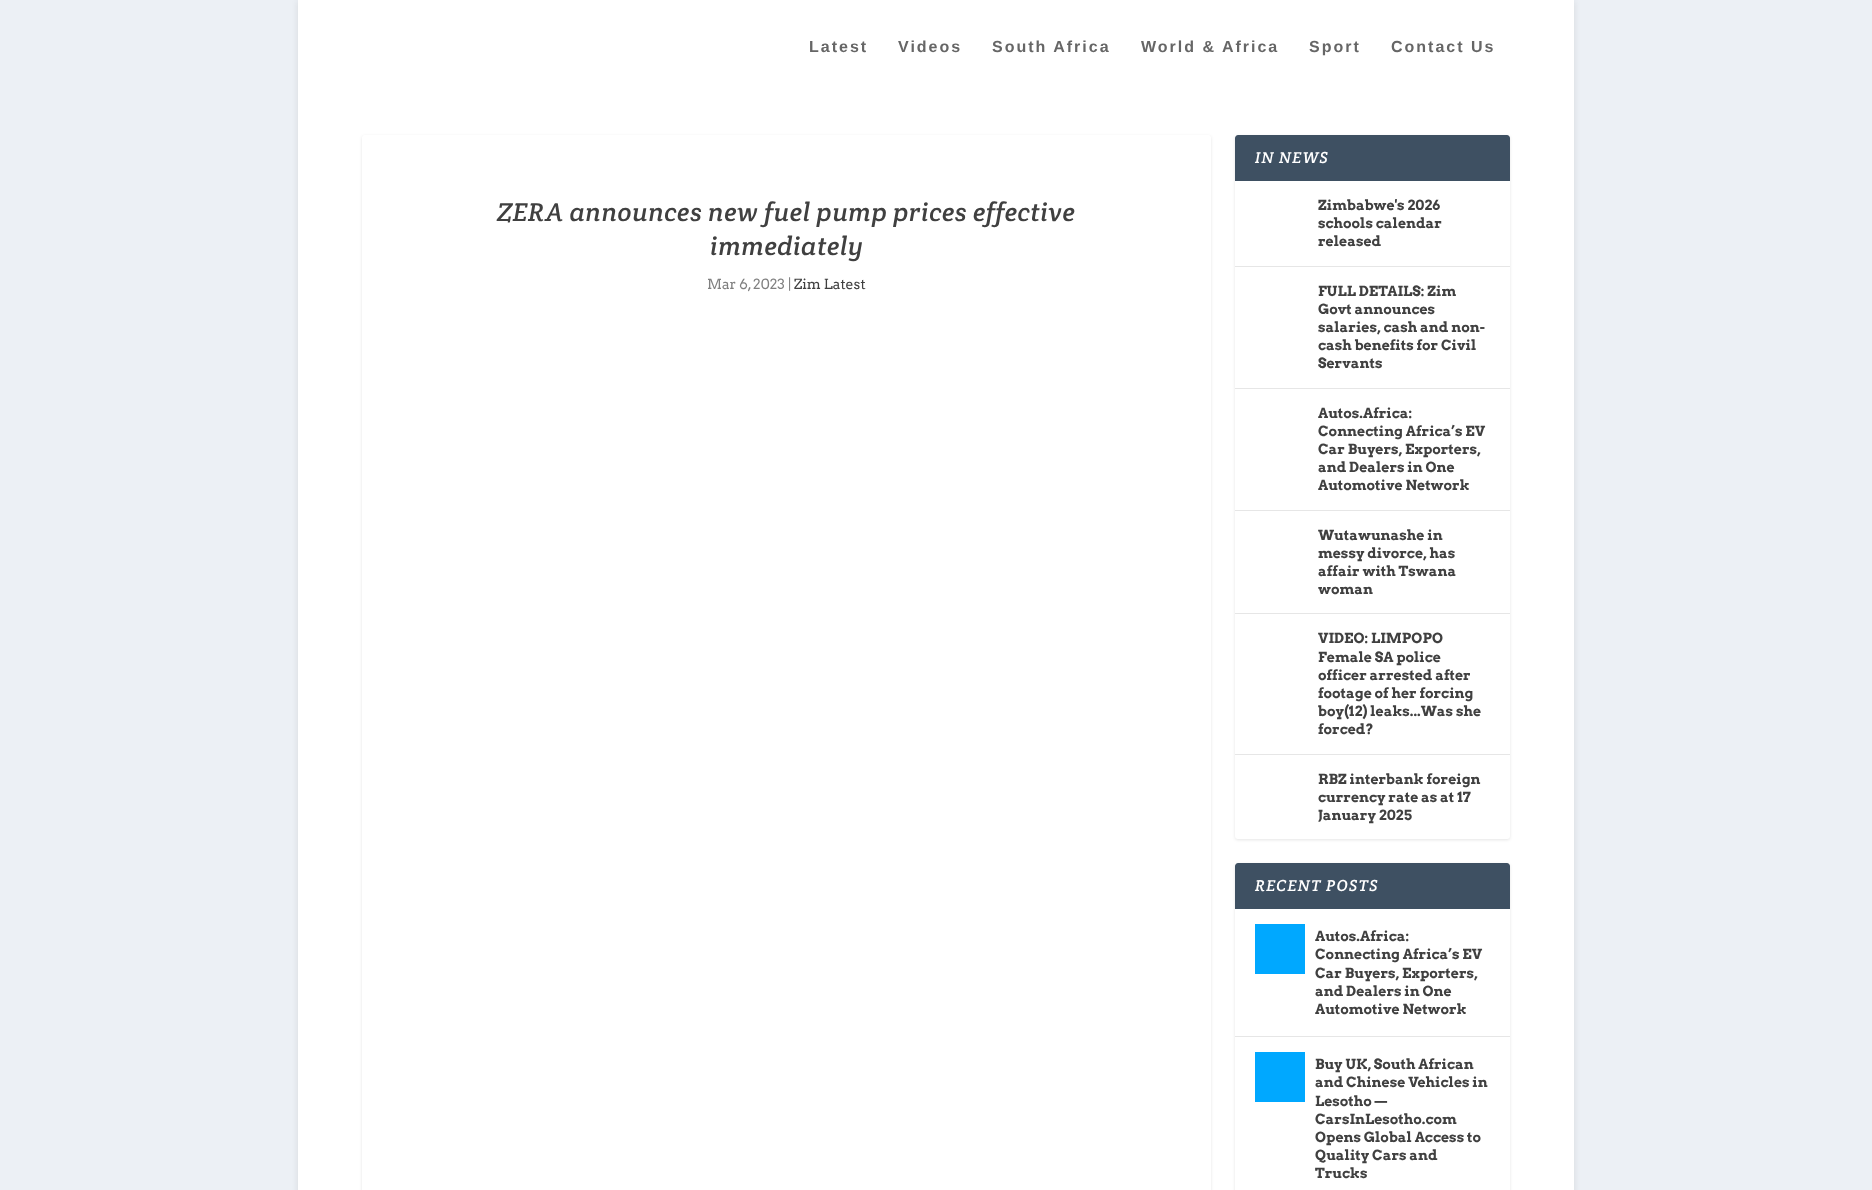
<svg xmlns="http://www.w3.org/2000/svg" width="1872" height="1190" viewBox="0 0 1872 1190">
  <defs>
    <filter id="blur1" x="-50%" y="-200%" width="200%" height="500%"><feGaussianBlur stdDeviation="3"/></filter>
    <filter id="blur2" x="-50%" y="-200%" width="200%" height="500%"><feGaussianBlur stdDeviation="1.5"/></filter>
  </defs>
  <rect width="100%" height="100%" fill="#ecf0f5"/>
  <rect x="298" y="1" width="1276" height="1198" fill="#000000" fill-opacity="0.1" filter="url(#blur1)"/>
  <rect x="298" y="0" width="1276" height="1190" fill="#ffffff"/>
  <text x="809" y="52" font-family="Liberation Sans" font-size="16" font-weight="bold" letter-spacing="2" fill="#666666">Latest</text>
  <text x="898" y="52" font-family="Liberation Sans" font-size="16" font-weight="bold" letter-spacing="2" fill="#666666">Videos</text>
  <text x="992" y="52" font-family="Liberation Sans" font-size="16" font-weight="bold" letter-spacing="2" fill="#666666">South Africa</text>
  <text x="1141" y="52" font-family="Liberation Sans" font-size="16" font-weight="bold" letter-spacing="2" fill="#666666">World &amp; Africa</text>
  <text x="1309" y="52" font-family="Liberation Sans" font-size="16" font-weight="bold" letter-spacing="2" fill="#666666">Sport</text>
  <text x="1391" y="52" font-family="Liberation Sans" font-size="16" font-weight="bold" letter-spacing="2" fill="#666666">Contact Us</text>
  <rect x="362" y="136" width="849" height="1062" rx="3" fill="#000000" fill-opacity="0.1" filter="url(#blur2)"/>
  <rect x="362" y="135" width="849" height="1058" rx="3" fill="#ffffff"/>
  <text x="497" y="221" font-family="Crete Round" font-size="26" font-style="italic" letter-spacing="0.5" fill="#404040">ZERA announces new fuel pump prices effective</text>
  <text x="710" y="255" font-family="Crete Round" font-size="26" font-style="italic" letter-spacing="0.5" fill="#404040">immediately</text>
  <text x="707" y="289" font-family="Arvo" font-size="14" fill="#808080">Mar 6, 2023 |</text>
  <text x="794" y="289" font-family="Arvo" font-size="14" fill="#404040">Zim Latest</text>
  <rect x="1235" y="136" width="275" height="704" rx="3" fill="#000000" fill-opacity="0.1" filter="url(#blur2)"/>
  <rect x="1235" y="135" width="275" height="704" rx="3" fill="#ffffff"/>
  <path d="M1238 135H1507C1508.5 135 1510 136.5 1510 138V181H1235V138C1235 136.5 1236.5 135 1238 135Z" fill="#3e5062"/>
  <text x="1255" y="163" font-family="Crete Round" font-size="16" font-style="italic" letter-spacing="1.25" fill="#ffffff">IN NEWS</text>
  <rect x="1235" y="266" width="275" height="1" fill="#e6e6e6"/>
  <text x="1318" y="210" font-family="Arvo" font-size="14" font-weight="bold" fill="#404040">Zimbabwe's 2026</text>
  <text x="1318" y="228" font-family="Arvo" font-size="14" font-weight="bold" fill="#404040">schools calendar</text>
  <text x="1318" y="246" font-family="Arvo" font-size="14" font-weight="bold" fill="#404040">released</text>
  <rect x="1235" y="388" width="275" height="1" fill="#e6e6e6"/>
  <text x="1318" y="296" font-family="Arvo" font-size="14" font-weight="bold" fill="#404040">FULL DETAILS: Zim</text>
  <text x="1318" y="314" font-family="Arvo" font-size="14" font-weight="bold" fill="#404040">Govt announces</text>
  <text x="1318" y="332" font-family="Arvo" font-size="14" font-weight="bold" fill="#404040">salaries, cash and non-</text>
  <text x="1318" y="350" font-family="Arvo" font-size="14" font-weight="bold" fill="#404040">cash benefits for Civil</text>
  <text x="1318" y="368" font-family="Arvo" font-size="14" font-weight="bold" fill="#404040">Servants</text>
  <rect x="1235" y="510" width="275" height="1" fill="#e6e6e6"/>
  <text x="1318" y="418" font-family="Arvo" font-size="14" font-weight="bold" fill="#404040">Autos.Africa:</text>
  <text x="1318" y="436" font-family="Arvo" font-size="14" font-weight="bold" fill="#404040">Connecting Africa’s EV</text>
  <text x="1318" y="454" font-family="Arvo" font-size="14" font-weight="bold" fill="#404040">Car Buyers, Exporters,</text>
  <text x="1318" y="472" font-family="Arvo" font-size="14" font-weight="bold" fill="#404040">and Dealers in One</text>
  <text x="1318" y="490" font-family="Arvo" font-size="14" font-weight="bold" fill="#404040">Automotive Network</text>
  <rect x="1235" y="613" width="275" height="1" fill="#e6e6e6"/>
  <text x="1318" y="540" font-family="Arvo" font-size="14" font-weight="bold" fill="#404040">Wutawunashe in</text>
  <text x="1318" y="558" font-family="Arvo" font-size="14" font-weight="bold" fill="#404040">messy divorce, has</text>
  <text x="1318" y="576" font-family="Arvo" font-size="14" font-weight="bold" fill="#404040">affair with Tswana</text>
  <text x="1318" y="594" font-family="Arvo" font-size="14" font-weight="bold" fill="#404040">woman</text>
  <rect x="1235" y="754" width="275" height="1" fill="#e6e6e6"/>
  <text x="1318" y="643" font-family="Arvo" font-size="14" font-weight="bold" fill="#404040">VIDEO: LIMPOPO</text>
  <text x="1318" y="662" font-family="Arvo" font-size="14" font-weight="bold" fill="#404040">Female SA police</text>
  <text x="1318" y="680" font-family="Arvo" font-size="14" font-weight="bold" fill="#404040">officer arrested after</text>
  <text x="1318" y="698" font-family="Arvo" font-size="14" font-weight="bold" fill="#404040">footage of her forcing</text>
  <text x="1318" y="716" font-family="Arvo" font-size="14" font-weight="bold" fill="#404040">boy(12) leaks...Was she</text>
  <text x="1318" y="734" font-family="Arvo" font-size="14" font-weight="bold" fill="#404040">forced?</text>
  <text x="1318" y="784" font-family="Arvo" font-size="14" font-weight="bold" fill="#404040">RBZ interbank foreign</text>
  <text x="1318" y="802" font-family="Arvo" font-size="14" font-weight="bold" fill="#404040">currency rate as at 17</text>
  <text x="1318" y="820" font-family="Arvo" font-size="14" font-weight="bold" fill="#404040">January 2025</text>
  <rect x="1235" y="864" width="275" height="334" rx="3" fill="#000000" fill-opacity="0.1" filter="url(#blur2)"/>
  <rect x="1235" y="863" width="275" height="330" rx="3" fill="#ffffff"/>
  <path d="M1238 863H1507C1508.5 863 1510 864.5 1510 866V909H1235V866C1235 864.5 1236.5 863 1238 863Z" fill="#3e5062"/>
  <text x="1255" y="891" font-family="Crete Round" font-size="16" font-style="italic" letter-spacing="1.25" fill="#ffffff">RECENT POSTS</text>
  <rect x="1235" y="1036" width="275" height="1" fill="#e6e6e6"/>
  <rect x="1255" y="924" width="50" height="50" fill="#00a8ff"/>
  <text x="1315" y="941" font-family="Arvo" font-size="14" font-weight="bold" fill="#404040">Autos.Africa:</text>
  <text x="1315" y="959" font-family="Arvo" font-size="14" font-weight="bold" fill="#404040">Connecting Africa’s EV</text>
  <text x="1315" y="978" font-family="Arvo" font-size="14" font-weight="bold" fill="#404040">Car Buyers, Exporters,</text>
  <text x="1315" y="996" font-family="Arvo" font-size="14" font-weight="bold" fill="#404040">and Dealers in One</text>
  <text x="1315" y="1014" font-family="Arvo" font-size="14" font-weight="bold" fill="#404040">Automotive Network</text>
  <rect x="1255" y="1052" width="50" height="50" fill="#00a8ff"/>
  <text x="1315" y="1069" font-family="Arvo" font-size="14" font-weight="bold" fill="#404040">Buy UK, South African</text>
  <text x="1315" y="1087" font-family="Arvo" font-size="14" font-weight="bold" fill="#404040">and Chinese Vehicles in</text>
  <text x="1315" y="1106" font-family="Arvo" font-size="14" font-weight="bold" fill="#404040">Lesotho —</text>
  <text x="1315" y="1124" font-family="Arvo" font-size="14" font-weight="bold" fill="#404040">CarsInLesotho.com</text>
  <text x="1315" y="1142" font-family="Arvo" font-size="14" font-weight="bold" fill="#404040">Opens Global Access to</text>
  <text x="1315" y="1160" font-family="Arvo" font-size="14" font-weight="bold" fill="#404040">Quality Cars and</text>
  <text x="1315" y="1178" font-family="Arvo" font-size="14" font-weight="bold" fill="#404040">Trucks</text>
</svg>
